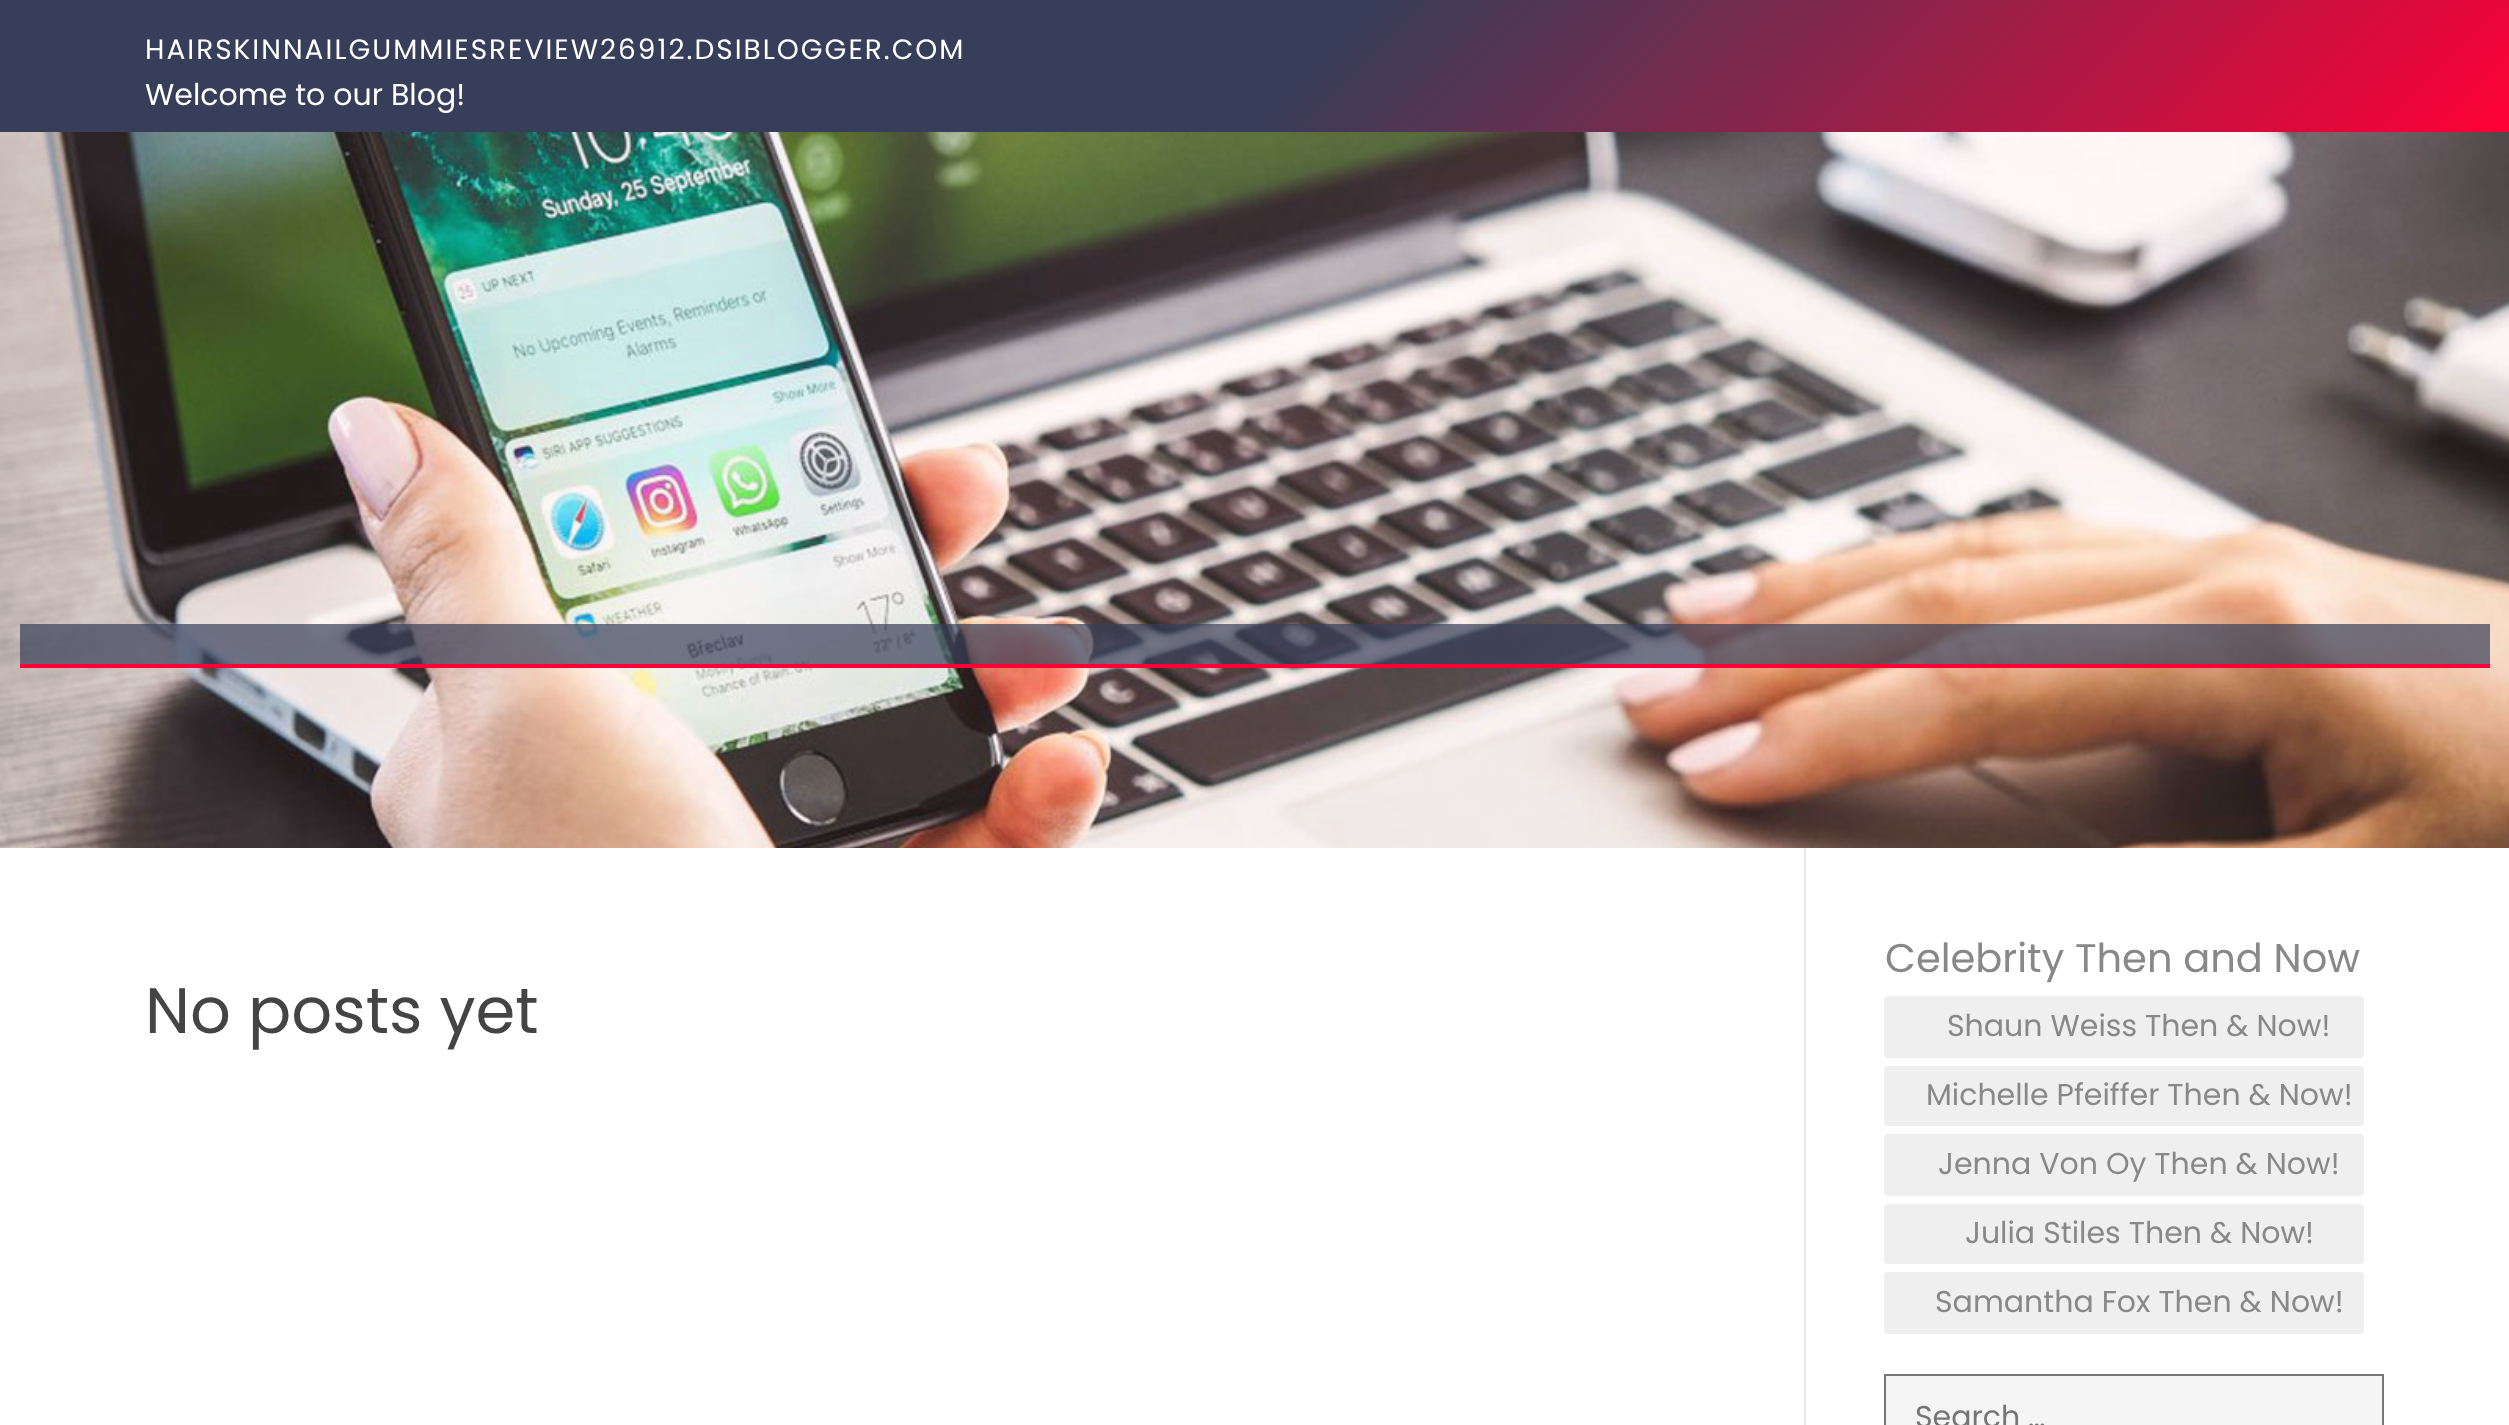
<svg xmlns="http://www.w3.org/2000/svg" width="2509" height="1425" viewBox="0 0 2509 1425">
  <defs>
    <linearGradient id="g1" gradientUnits="userSpaceOnUse" x1="594" y1="-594" x2="1916" y2="727"><stop offset="0.52" stop-color="#373e59"/><stop offset="1" stop-color="#ff0036"/></linearGradient>
  </defs>
  <rect width="100%" height="100%" fill="#ffffff"/>
  <rect x="0" y="0" width="2509" height="132" fill="url(#g1)"/>
  <text x="145" y="59" font-family="Poppins" font-size="28" letter-spacing="2" fill="#ffffff">HAIRSKINNAILGUMMIESREVIEW26912.DSIBLOGGER.COM</text>
  <text x="145" y="105" font-family="Poppins" font-size="30" fill="#ffffff">Welcome to our Blog!</text>
  <image x="0" y="132" width="2509" height="716" href="img1.png"/>
  <rect x="20" y="624" width="2470" height="40" fill="#373e59" fill-opacity="0.7"/>
  <rect x="20" y="664" width="2470" height="4" fill="#ff0036"/>
  <text x="145" y="1033" font-family="Poppins" font-size="64" fill="#444444">No posts yet</text>
  <rect x="1804" y="848" width="2" height="577" fill="#e9e9e9"/>
  <text x="1885" y="972" font-family="Poppins" font-size="40" fill="#888888">Celebrity Then and Now</text>
  <rect x="1884" y="996" width="480" height="62" rx="4" fill="#efefef"/>
  <text x="1947" y="1036" font-family="Poppins" font-size="30" fill="#888888">Shaun Weiss Then &amp; Now!</text>
  <rect x="1884" y="1066" width="480" height="60" rx="4" fill="#efefef"/>
  <text x="1926" y="1105" font-family="Poppins" font-size="30" fill="#888888">Michelle Pfeiffer Then &amp; Now!</text>
  <rect x="1884" y="1134" width="480" height="62" rx="4" fill="#efefef"/>
  <text x="1938" y="1174" font-family="Poppins" font-size="30" fill="#888888">Jenna Von Oy Then &amp; Now!</text>
  <rect x="1884" y="1204" width="480" height="60" rx="4" fill="#efefef"/>
  <text x="1965" y="1243" font-family="Poppins" font-size="30" fill="#888888">Julia Stiles Then &amp; Now!</text>
  <rect x="1884" y="1272" width="480" height="62" rx="4" fill="#efefef"/>
  <text x="1935" y="1312" font-family="Poppins" font-size="30" fill="#888888">Samantha Fox Then &amp; Now!</text>
  <rect x="1885" y="1375" width="498" height="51" fill="#f5f5f5" stroke="#777777" stroke-width="2"/>
  <text x="1915" y="1427" font-family="Poppins" font-size="30" fill="#757575">Search …</text>
</svg>
